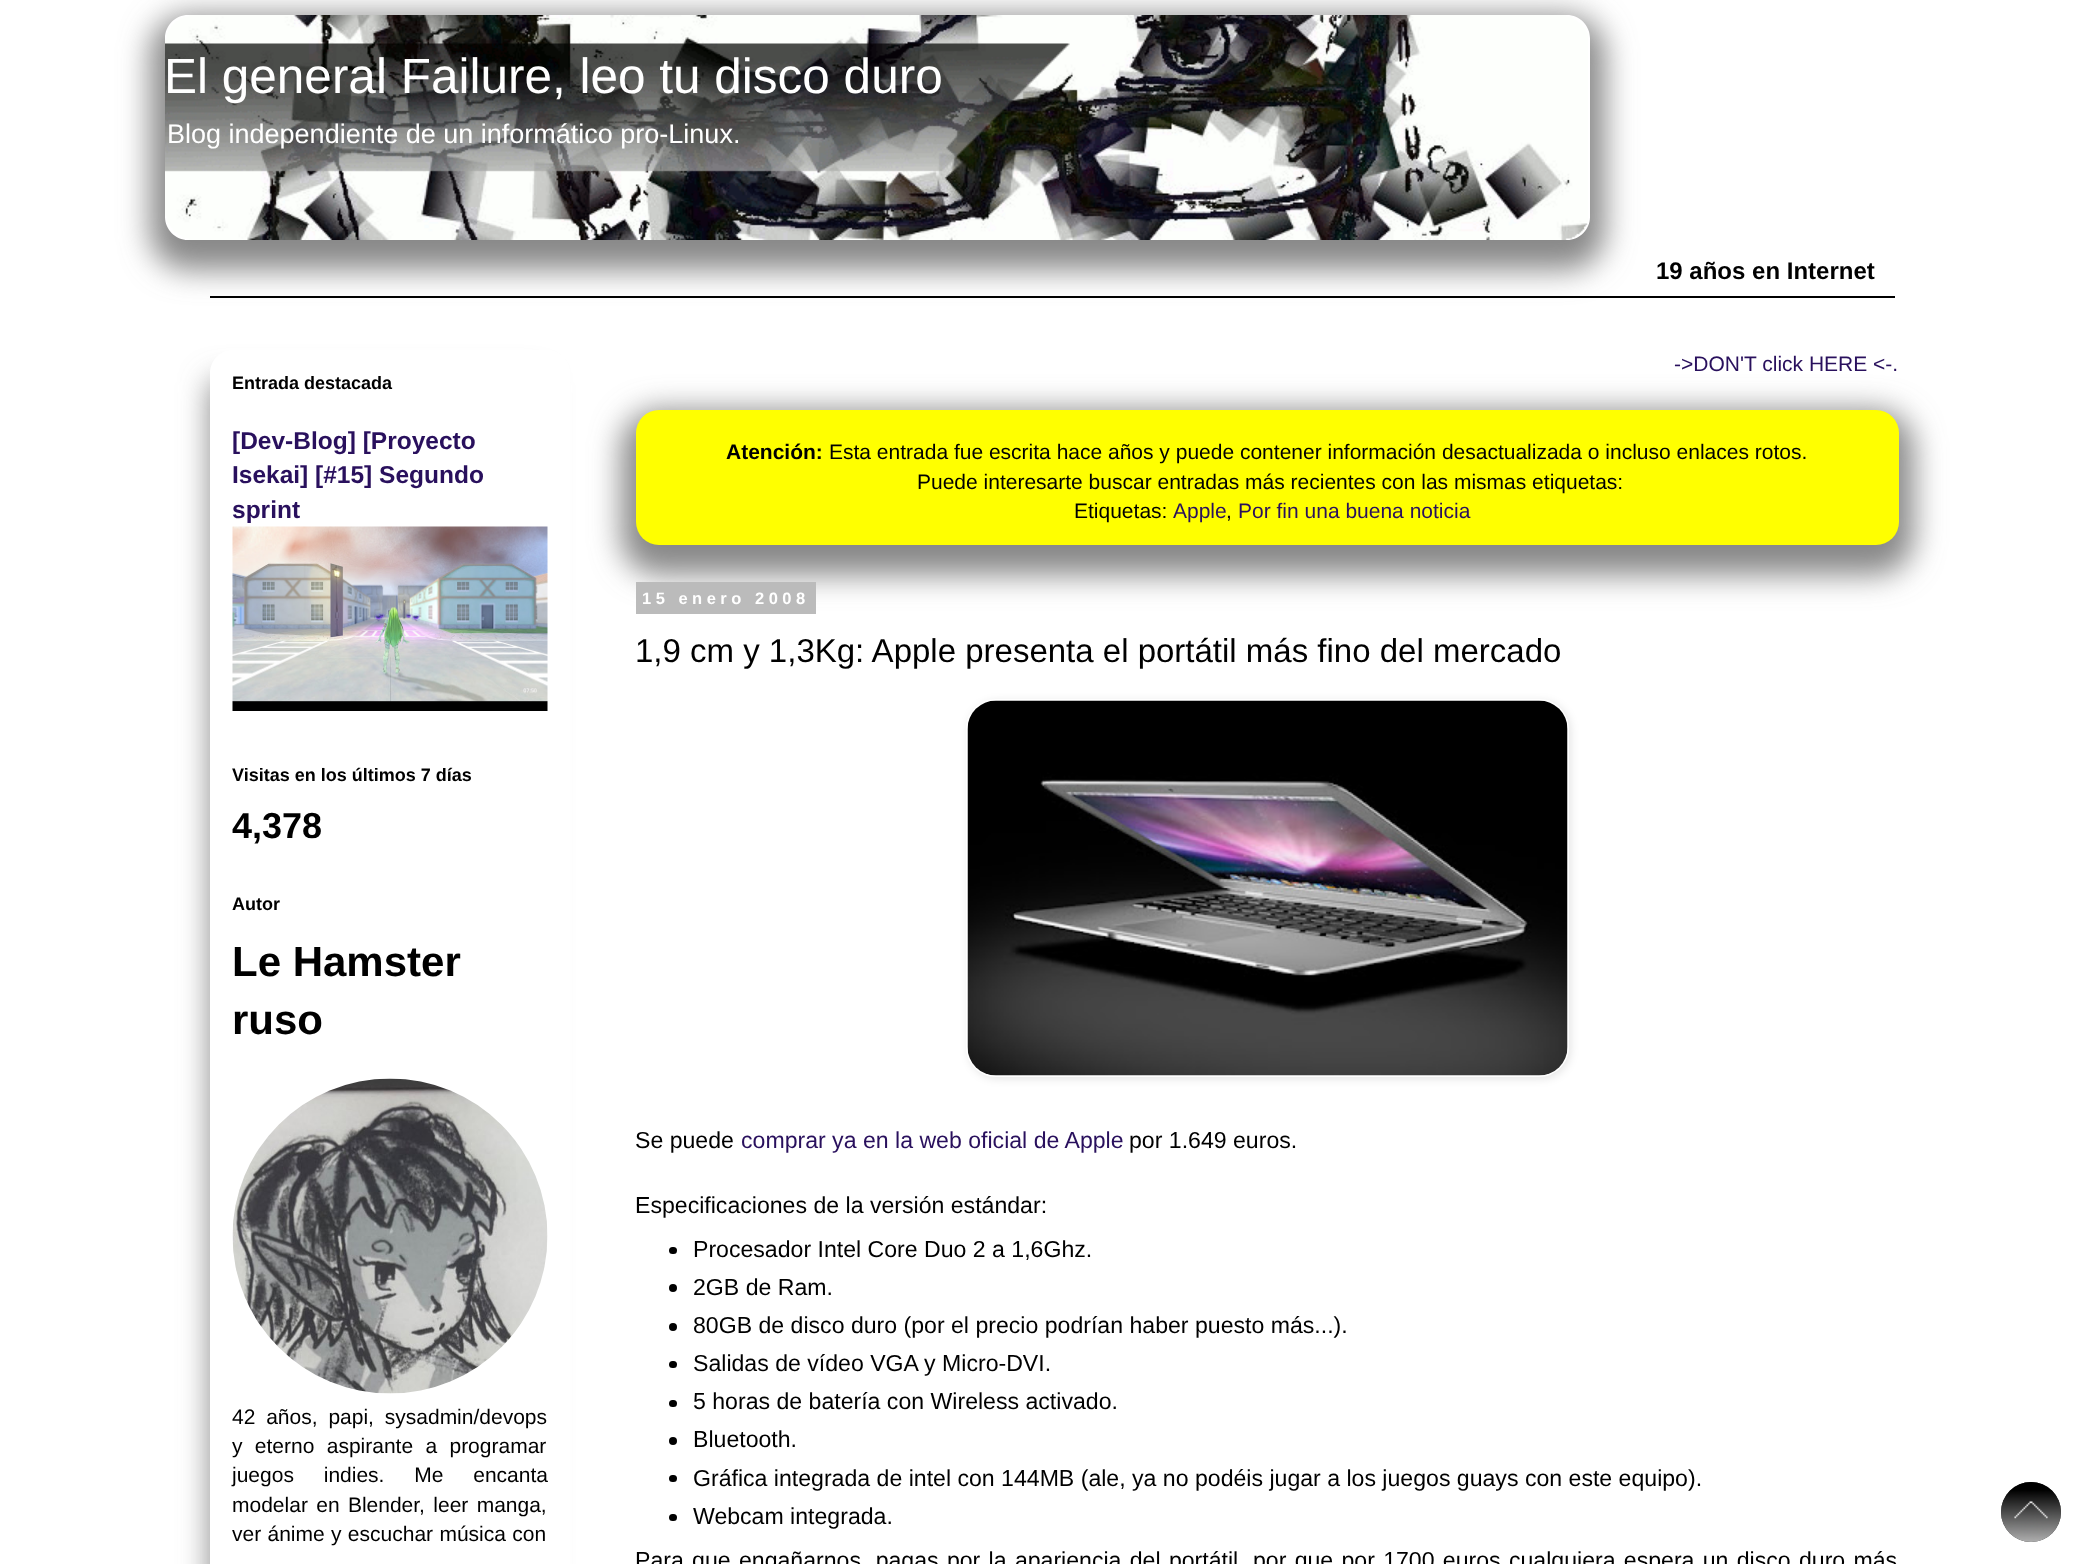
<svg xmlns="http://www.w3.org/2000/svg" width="2083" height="1564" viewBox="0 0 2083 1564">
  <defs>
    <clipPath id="clip1"><path d="M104 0H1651V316H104ZM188 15H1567C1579.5 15 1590 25.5 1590 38V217C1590 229.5 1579.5 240 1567 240H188C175.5 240 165 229.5 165 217V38C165 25.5 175.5 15 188 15Z" clip-rule="evenodd"/></clipPath>
    <filter id="blur1" x="-50%" y="-200%" width="200%" height="500%"><feGaussianBlur stdDeviation="15"/></filter>
    <clipPath id="clip2"><path d="M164 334H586V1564H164ZM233 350H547C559.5 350 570 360.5 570 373V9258C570 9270.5 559.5 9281 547 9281H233C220.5 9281 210 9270.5 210 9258V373C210 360.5 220.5 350 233 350Z" clip-rule="evenodd"/></clipPath>
    <clipPath id="clip3"><path d="M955 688H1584V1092H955ZM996 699H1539C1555.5 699 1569 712.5 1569 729V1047C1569 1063.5 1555.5 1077 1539 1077H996C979.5 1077 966 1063.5 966 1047V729C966 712.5 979.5 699 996 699Z" clip-rule="evenodd"/></clipPath>
    <filter id="blur2" x="-50%" y="-200%" width="200%" height="500%"><feGaussianBlur stdDeviation="4"/></filter>
  </defs>
  <rect width="100%" height="100%" fill="#ffffff"/>
  <g clip-path="url(#clip1)">
    <rect x="150" y="15" width="1455" height="255" rx="38" fill="#888888" filter="url(#blur1)"/>
  </g>
  <image x="165" y="15" width="1423" height="225" href="img1.png"/>
  <text x="164" y="93" font-family="Liberation Sans" font-size="49.5" fill="#ffffff">El general Failure, leo tu disco duro</text>
  <text x="167" y="143" font-family="Liberation Sans" font-size="27" fill="#ffffff">Blog independiente de un informático pro-Linux.</text>
  <rect x="210" y="296" width="1685" height="2" fill="#000000"/>
  <text x="1656" y="279" font-family="Liberation Sans" font-size="24" font-weight="bold" fill="#000000">19 años en Internet</text>
  <g clip-path="url(#clip2)">
    <rect x="210" y="380" width="330" height="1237" rx="8" fill="#888888" filter="url(#blur1)"/>
  </g>
  <text x="232" y="389" font-family="Liberation Sans" font-size="18" font-weight="bold" fill="#000000">Entrada destacada</text>
  <text x="232" y="449" font-family="Liberation Sans" font-size="24.5" font-weight="bold" fill="#29105d">[Dev-Blog] [Proyecto</text>
  <text x="232" y="483" font-family="Liberation Sans" font-size="24.5" font-weight="bold" fill="#29105d">Isekai] [#15] Segundo</text>
  <text x="232" y="518" font-family="Liberation Sans" font-size="24.5" font-weight="bold" fill="#29105d">sprint</text>
  <image x="232" y="526" width="316" height="185" href="img2.png"/>
  <text x="232" y="781" font-family="Liberation Sans" font-size="18" font-weight="bold" fill="#000000">Visitas en los últimos 7 días</text>
  <text x="232" y="838" font-family="Liberation Sans" font-size="36" font-weight="bold" fill="#000000">4,378</text>
  <text x="232" y="910" font-family="Liberation Sans" font-size="18" font-weight="bold" fill="#000000">Autor</text>
  <text x="232" y="976" font-family="Liberation Sans" font-size="42" font-weight="bold" fill="#000000">Le Hamster</text>
  <text x="232" y="1034" font-family="Liberation Sans" font-size="42" font-weight="bold" fill="#000000">ruso</text>
  <image x="232" y="1078" width="316" height="316" href="img3.png"/>
  <text x="232" y="1424" word-spacing="5" font-family="Liberation Sans" font-size="21" fill="#000000">42 años, papi, sysadmin/devops</text>
  <text x="232" y="1453" word-spacing="6.5" font-family="Liberation Sans" font-size="21" fill="#000000">y eterno aspirante a programar</text>
  <text x="232" y="1482" word-spacing="24" font-family="Liberation Sans" font-size="21" fill="#000000">juegos indies. Me encanta</text>
  <text x="232" y="1512" word-spacing="2.5" font-family="Liberation Sans" font-size="21" fill="#000000">modelar en Blender, leer manga,</text>
  <text x="232" y="1541" word-spacing="0.5" font-family="Liberation Sans" font-size="21" fill="#000000">ver ánime y escuchar música con</text>
  <rect x="621" y="410" width="1293" height="165" rx="38" fill="#888888" filter="url(#blur1)"/>
  <text x="1674" y="371" font-family="Liberation Sans" font-size="21" fill="#29105d">-&gt;DON'T click HERE &lt;-.</text>
  <rect x="636" y="410" width="1263" height="135" rx="23" fill="#ffff00"/>
  <text x="726" y="459" font-family="Liberation Sans" font-size="21" font-weight="bold" fill="#000000">Atención:</text>
  <text x="829" y="459" font-family="Liberation Sans" font-size="21" fill="#000000">Esta entrada fue escrita hace años y puede contener información desactualizada o incluso enlaces rotos.</text>
  <text x="917" y="489" font-family="Liberation Sans" font-size="21" fill="#000000">Puede interesarte buscar entradas más recientes con las mismas etiquetas:</text>
  <text x="1074" y="518" font-family="Liberation Sans" font-size="21" fill="#000000">Etiquetas:</text>
  <text x="1173" y="518" font-family="Liberation Sans" font-size="21" fill="#29105d">Apple</text>
  <text x="1226" y="518" font-family="Liberation Sans" font-size="21" fill="#000000">,</text>
  <text x="1238" y="518" font-family="Liberation Sans" font-size="21" fill="#29105d">Por fin una buena noticia</text>
  <rect x="636" y="582" width="180" height="32" fill="#bbbbbb"/>
  <text x="642" y="604" font-family="Liberation Sans" font-size="16.5" font-weight="bold" letter-spacing="4.5" fill="#ffffff">15 enero 2008</text>
  <text x="635" y="662" font-family="Liberation Sans" font-size="33" fill="#000000">1,9 cm y 1,3Kg: Apple presenta el portátil más fino del mercado</text>
  <g clip-path="url(#clip3)">
    <rect x="968" y="701" width="603" height="378" rx="30" fill="#000000" fill-opacity="0.1" filter="url(#blur2)"/>
  </g>
  <image x="967" y="700" width="601" height="376" href="img4.png"/>
  <text x="635" y="1148" font-family="Liberation Sans" font-size="23.1" fill="#000000">Se puede</text>
  <text x="741" y="1148" font-family="Liberation Sans" font-size="23.1" fill="#29105d">comprar ya en la web oficial de Apple</text>
  <text x="1129" y="1148" font-family="Liberation Sans" font-size="23.1" fill="#000000">por 1.649 euros.</text>
  <text x="635" y="1213" font-family="Liberation Sans" font-size="23.1" fill="#000000">Especificaciones de la versión estándar:</text>
  <rect x="669" y="1247" width="8" height="7" rx="3.5" fill="#000000"/>
  <text x="693" y="1257" font-family="Liberation Sans" font-size="23.1" fill="#000000">Procesador Intel Core Duo 2 a 1,6Ghz.</text>
  <circle cx="673" cy="1288" r="4" fill="#000000"/>
  <text x="693" y="1295" font-family="Liberation Sans" font-size="23.1" fill="#000000">2GB de Ram.</text>
  <circle cx="673" cy="1327" r="4" fill="#000000"/>
  <text x="693" y="1333" font-family="Liberation Sans" font-size="23.1" fill="#000000">80GB de disco duro (por el precio podrían haber puesto más...).</text>
  <rect x="669" y="1361" width="8" height="7" rx="3.5" fill="#000000"/>
  <text x="693" y="1371" font-family="Liberation Sans" font-size="23.1" fill="#000000">Salidas de vídeo VGA y Micro-DVI.</text>
  <rect x="669" y="1400" width="8" height="7" rx="3.5" fill="#000000"/>
  <text x="693" y="1409" font-family="Liberation Sans" font-size="23.1" fill="#000000">5 horas de batería con Wireless activado.</text>
  <circle cx="673" cy="1441" r="4" fill="#000000"/>
  <text x="693" y="1447" font-family="Liberation Sans" font-size="23.1" fill="#000000">Bluetooth.</text>
  <rect x="669" y="1475" width="8" height="7" rx="3.5" fill="#000000"/>
  <text x="693" y="1486" font-family="Liberation Sans" font-size="23.1" fill="#000000">Gráfica integrada de intel con 144MB (ale, ya no podéis jugar a los juegos guays con este equipo).</text>
  <rect x="669" y="1514" width="8" height="7" rx="3.5" fill="#000000"/>
  <text x="693" y="1524" font-family="Liberation Sans" font-size="23.1" fill="#000000">Webcam integrada.</text>
  <text x="635" y="1568" word-spacing="1.9" font-family="Liberation Sans" font-size="23.1" fill="#000000">Para que engañarnos, pagas por la apariencia del portátil, por que por 1700 euros cualquiera espera un disco duro más</text>
  <circle cx="2031" cy="1512" r="30" fill="#333333"/>
  <image x="2001" y="1482" width="60" height="60" href="img5.png"/>
</svg>
